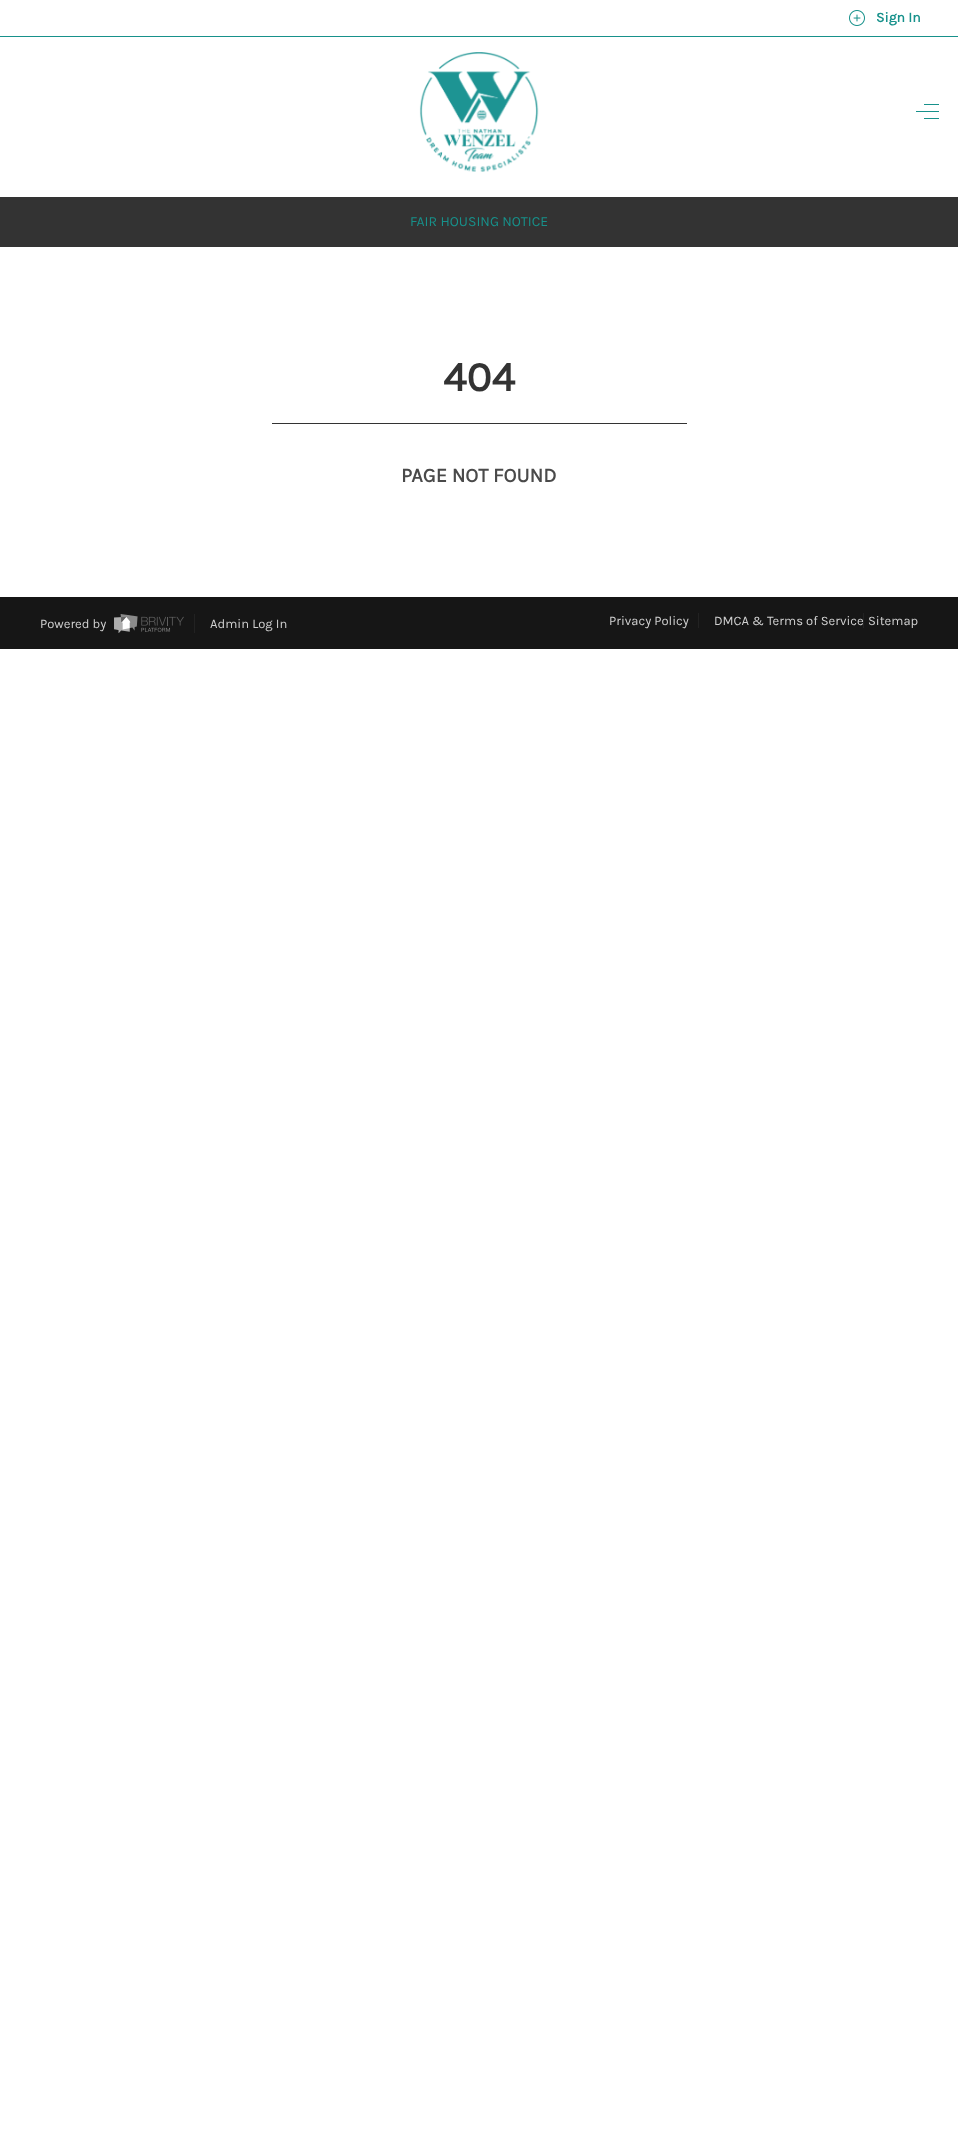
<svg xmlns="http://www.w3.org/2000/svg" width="958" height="2140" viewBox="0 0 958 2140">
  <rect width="100%" height="100%" fill="#ffffff"/>
  <rect x="0" y="36" width="958" height="1" fill="#17918b"/>
  <image x="849" y="10" width="16" height="16" href="img1.png"/>
  <text x="876" y="22" font-family="Karla" font-size="14" font-weight="bold" fill="#17918b">Sign In</text>
  <rect x="0" y="197" width="958" height="50" fill="#333333"/>
  <text x="410" y="226" font-family="Karla" font-size="14" fill="#17918b">FAIR HOUSING NOTICE</text>
  <image x="419" y="52" width="120" height="120" href="img2.png"/>
  <rect x="924" y="104" width="15" height="1" fill="#17918b"/>
  <rect x="916" y="111" width="23" height="1" fill="#17918b"/>
  <rect x="924" y="118" width="15" height="1" fill="#17918b"/>
  <text x="443" y="391" font-family="Karla" font-size="42" font-weight="bold" fill="#333333">404</text>
  <rect x="272" y="423" width="415" height="1" fill="#333333"/>
  <text x="401" y="482" font-family="Karla" font-size="20" font-weight="bold" fill="#4a4a4a">PAGE NOT FOUND</text>
  <rect x="0" y="597" width="958" height="52" fill="#161616"/>
  <text x="40" y="628" font-family="Karla" font-size="13" fill="#d0d0d0">Powered by</text>
  <rect x="194" y="614" width="1" height="19" fill="#222222"/>
  <image x="114" y="614" width="70" height="19" href="img3.png"/>
  <text x="210" y="628" font-family="Karla" font-size="13" fill="#d0d0d0">Admin Log In</text>
  <text x="609" y="625" font-family="Karla" font-size="13" fill="#d0d0d0">Privacy Policy</text>
  <rect x="698" y="613" width="1" height="15" fill="#222222"/>
  <text x="714" y="625" font-family="Karla" font-size="13" fill="#d0d0d0">DMCA &amp; Terms of Service</text>
  <rect x="863" y="613" width="1" height="15" fill="#222222"/>
  <text x="868" y="625" font-family="Karla" font-size="13" fill="#d0d0d0">Sitemap</text>
</svg>
